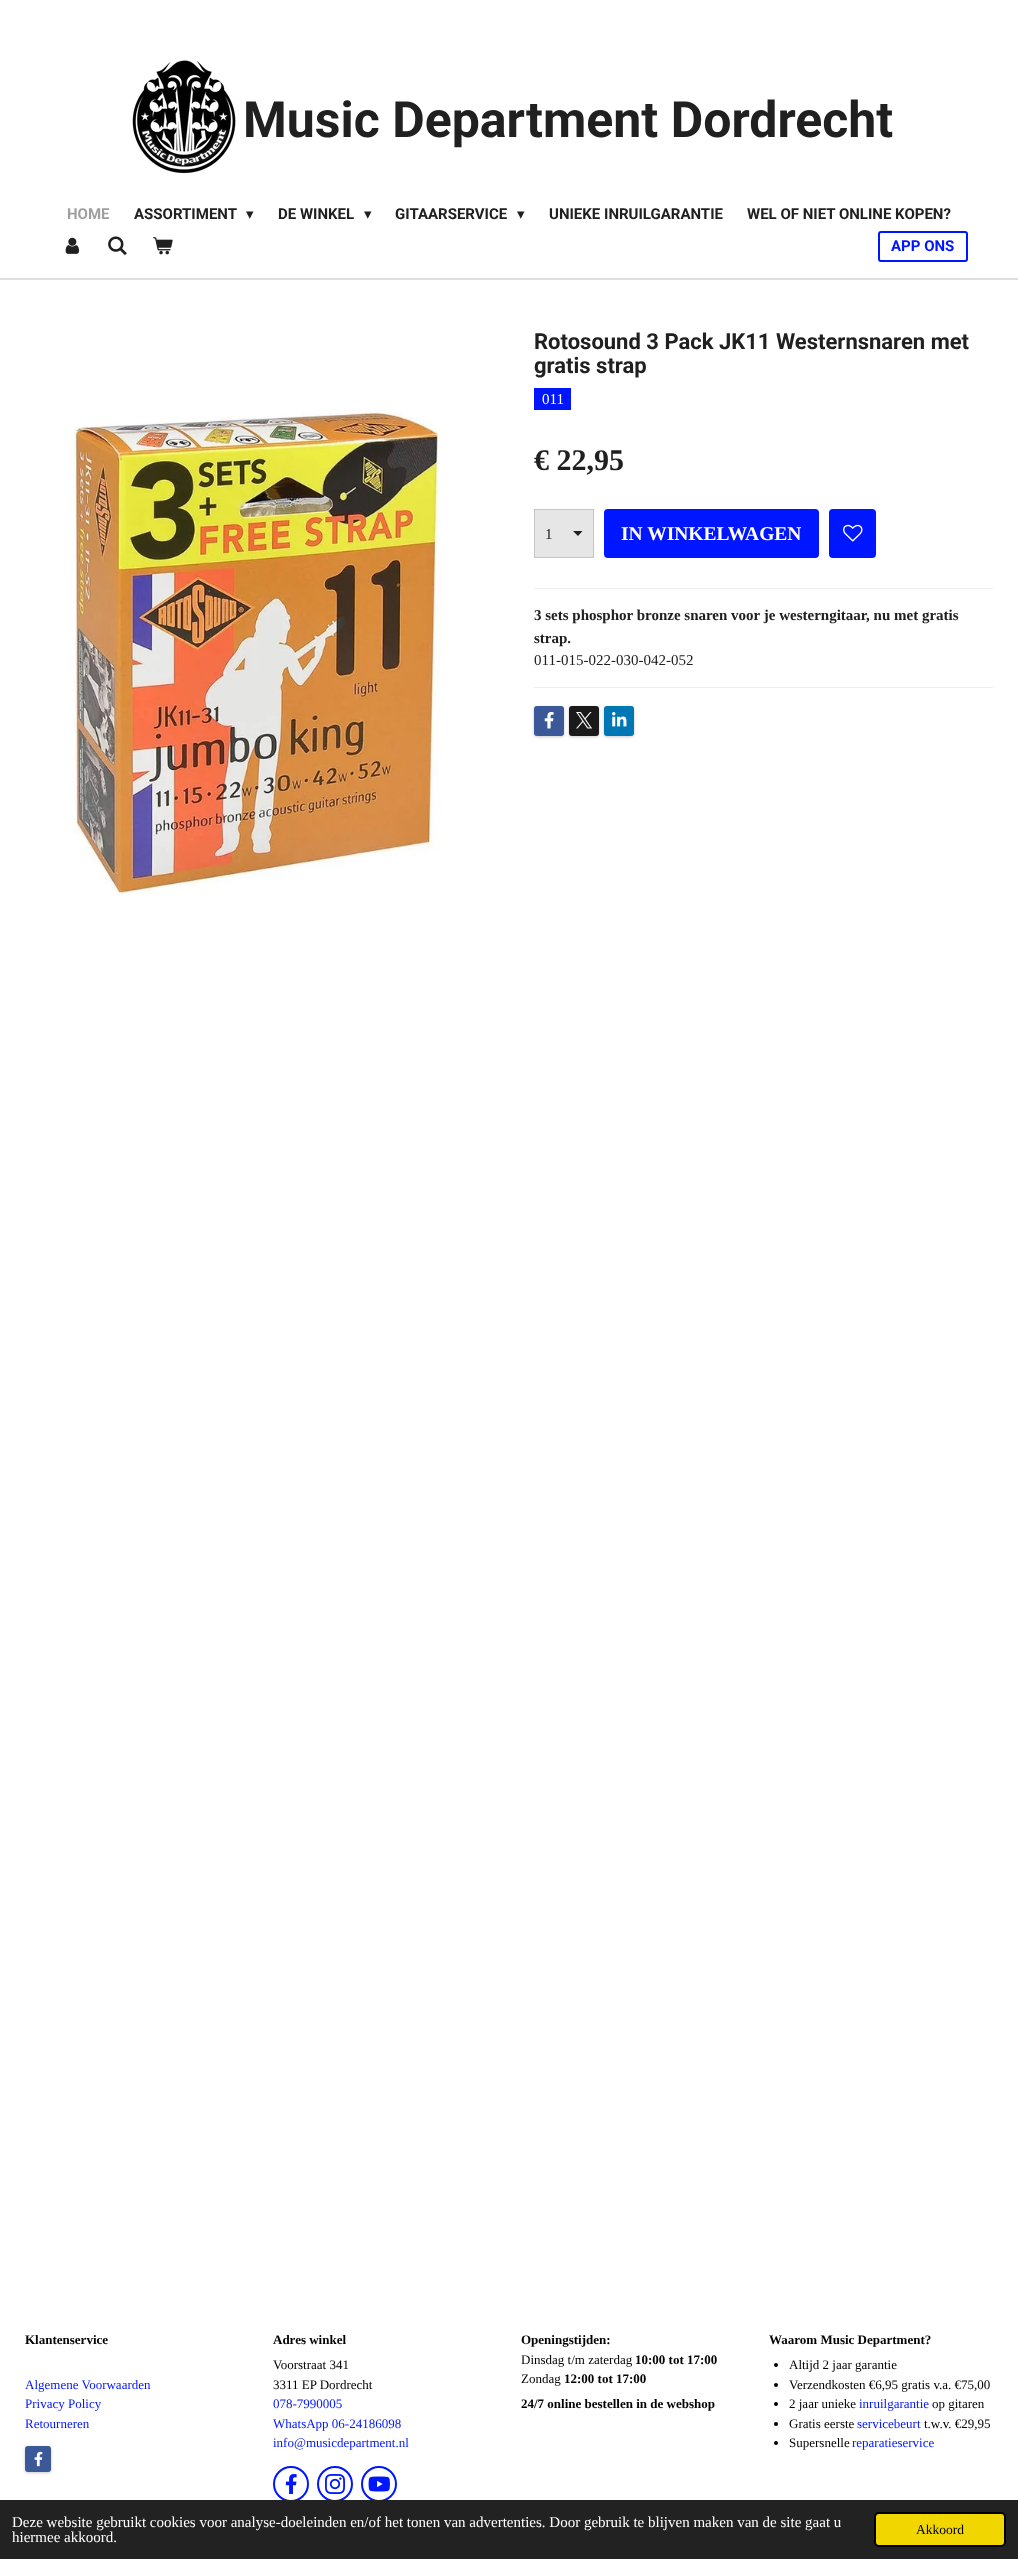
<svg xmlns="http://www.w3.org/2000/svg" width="1018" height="2559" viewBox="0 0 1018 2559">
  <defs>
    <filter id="blur1" x="-50%" y="-200%" width="200%" height="500%"><feGaussianBlur stdDeviation="1.5"/></filter>
  </defs>
  <rect width="100%" height="100%" fill="#ffffff"/>
  <image x="132" y="60" width="104" height="114" href="img1.png"/>
  <text x="243" y="137" font-family="Roboto" font-size="50" font-weight="bold" fill="#202020">Music Department Dordrecht</text>
  <text x="67" y="219" font-family="Roboto" font-size="15" font-weight="bold" fill="#9f9f9f">HOME</text>
  <text x="134" y="219" font-family="Roboto" font-size="15" font-weight="bold" fill="#202020">ASSORTIMENT</text>
  <text x="246" y="219" font-family="DejaVu Sans" font-size="15" fill="#202020">▾</text>
  <text x="278" y="219" font-family="Roboto" font-size="15" font-weight="bold" fill="#202020">DE WINKEL</text>
  <text x="364" y="219" font-family="DejaVu Sans" font-size="15" fill="#202020">▾</text>
  <text x="395" y="219" font-family="Roboto" font-size="15" font-weight="bold" fill="#202020">GITAARSERVICE</text>
  <text x="517" y="219" font-family="DejaVu Sans" font-size="15" fill="#202020">▾</text>
  <text x="549" y="219" font-family="Roboto" font-size="15" font-weight="bold" fill="#202020">UNIEKE INRUILGARANTIE</text>
  <text x="747" y="219" font-family="Roboto" font-size="15" font-weight="bold" fill="#202020">WEL OF NIET ONLINE KOPEN?</text>
  <image x="65" y="237" width="14" height="17" href="img2.png"/>
  <image x="108" y="236" width="19" height="20" href="img3.png"/>
  <image x="153" y="237" width="20" height="18" href="img4.png"/>
  <rect x="879" y="232" width="88" height="29" rx="2" fill="none" stroke="#0016ff" stroke-width="2"/>
  <text x="891" y="251" font-family="Roboto" font-size="15" font-weight="bold" fill="#0016ff">APP ONS</text>
  <rect x="0" y="278" width="1018" height="2" fill="#dedede"/>
  <text x="534" y="349" font-family="Roboto" font-size="22" font-weight="bold" fill="#202020">Rotosound 3 Pack JK11 Westernsnaren met</text>
  <text x="534" y="373" font-family="Roboto" font-size="22" font-weight="bold" fill="#202020">gratis strap</text>
  <rect x="534" y="388" width="37" height="22" fill="#0016ff"/>
  <text x="542" y="404" font-family="Liberation Serif" font-size="15" fill="#ffffff">011</text>
  <image x="71" y="410" width="370" height="486" href="img5.png"/>
  <text x="534" y="470" font-family="Liberation Serif" font-size="30" font-weight="bold" fill="#202020">€ 22,95</text>
  <rect x="535" y="510" width="58" height="47" fill="#e6e6e6"/>
  <path d="M578 536L573 531H582.5Z" fill="#202020"/>
  <rect x="534.5" y="509.5" width="59" height="48" fill="none" stroke="#c6c6c6"/>
  <text x="545" y="539" font-family="Liberation Serif" font-size="15" fill="#202020">1</text>
  <rect x="604" y="509" width="215" height="49" rx="4" fill="#0016ff"/>
  <text x="621" y="540" font-family="Liberation Serif" font-size="19.5" font-weight="bold" fill="#ffffff">IN WINKELWAGEN</text>
  <rect x="829" y="509" width="47" height="49" rx="4" fill="#0016ff"/>
  <image x="843" y="524" width="20" height="18" href="img6.png"/>
  <rect x="534" y="588" width="459" height="1" fill="#efefef"/>
  <text x="534" y="620" font-family="Liberation Serif" font-size="15" font-weight="bold" fill="#202020">3 sets phosphor bronze snaren voor je westerngitaar, nu met gratis</text>
  <text x="534" y="643" font-family="Liberation Serif" font-size="15" font-weight="bold" fill="#202020">strap.</text>
  <text x="534" y="665" font-family="Liberation Serif" font-size="15" fill="#202020">011-015-022-030-042-052</text>
  <rect x="534" y="687" width="459" height="1" fill="#efefef"/>
  <rect x="534" y="707" width="30" height="30" rx="3" fill="#000000" fill-opacity="0.2" filter="url(#blur1)"/>
  <rect x="534" y="706" width="30" height="30" rx="3" fill="#3b5998"/>
  <image x="544" y="712" width="10" height="17" href="img7.png"/>
  <rect x="569" y="707" width="30" height="30" rx="3" fill="#000000" fill-opacity="0.2" filter="url(#blur1)"/>
  <rect x="569" y="706" width="30" height="30" rx="3" fill="#1a1a1a"/>
  <image x="576" y="712" width="16" height="17" href="img8.png"/>
  <rect x="604" y="707" width="30" height="30" rx="3" fill="#000000" fill-opacity="0.2" filter="url(#blur1)"/>
  <rect x="604" y="706" width="30" height="30" rx="3" fill="#0077b5"/>
  <image x="612" y="712" width="15" height="15" href="img9.png"/>
  <text x="25" y="2344" font-family="Liberation Serif" font-size="13" font-weight="bold" fill="#000000">Klantenservice</text>
  <text x="25" y="2389" font-family="Liberation Serif" font-size="13" fill="#0016ff">Algemene Voorwaarden</text>
  <text x="25" y="2408" font-family="Liberation Serif" font-size="13" fill="#0016ff">Privacy Policy</text>
  <text x="25" y="2428" font-family="Liberation Serif" font-size="13" fill="#0016ff">Retourneren</text>
  <rect x="25" y="2447" width="26" height="26" rx="3" fill="#000000" fill-opacity="0.2" filter="url(#blur1)"/>
  <rect x="25" y="2446" width="26" height="26" rx="3" fill="#3b5998"/>
  <image x="34" y="2451" width="9" height="16" href="img10.png"/>
  <text x="273" y="2344" font-family="Liberation Serif" font-size="13" font-weight="bold" fill="#000000">Adres winkel</text>
  <text x="273" y="2369" font-family="Liberation Serif" font-size="13" fill="#000000">Voorstraat 341</text>
  <text x="273" y="2389" font-family="Liberation Serif" font-size="13" fill="#000000">3311 EP Dordrecht</text>
  <text x="273" y="2408" font-family="Liberation Serif" font-size="13" fill="#0016ff">078-7990005</text>
  <text x="273" y="2428" font-family="Liberation Serif" font-size="13" fill="#0016ff">WhatsApp 06-24186098</text>
  <text x="273" y="2447" font-family="Liberation Serif" font-size="13" fill="#0016ff">info@musicdepartment.nl</text>
  <circle cx="291" cy="2484" r="17" fill="none" stroke="#0016ff" stroke-width="2"/>
  <image x="285" y="2474" width="12" height="20" href="img11.png"/>
  <circle cx="335" cy="2484" r="17" fill="none" stroke="#0016ff" stroke-width="2"/>
  <image x="325" y="2474" width="20" height="20" href="img12.png"/>
  <circle cx="379" cy="2484" r="17" fill="none" stroke="#0016ff" stroke-width="2"/>
  <image x="368" y="2476" width="22" height="16" href="img13.png"/>
  <text x="521" y="2344" font-family="Liberation Serif" font-size="13" font-weight="bold" fill="#000000">Openingstijden:</text>
  <text x="521" y="2364" font-family="Liberation Serif" font-size="13" fill="#000000">Dinsdag t/m zaterdag</text>
  <text x="635" y="2364" font-family="Liberation Serif" font-size="13" font-weight="bold" fill="#000000">10:00 tot 17:00</text>
  <text x="521" y="2383" font-family="Liberation Serif" font-size="13" fill="#000000">Zondag</text>
  <text x="564" y="2383" font-family="Liberation Serif" font-size="13" font-weight="bold" fill="#000000">12:00 tot 17:00</text>
  <text x="521" y="2408" font-family="Liberation Serif" font-size="13" font-weight="bold" fill="#000000">24/7 online bestellen in de webshop</text>
  <text x="769" y="2344" font-family="Liberation Serif" font-size="13" font-weight="bold" fill="#000000">Waarom Music Department?</text>
  <circle cx="776" cy="2365" r="2" fill="#000000"/>
  <text x="789" y="2369" font-family="Liberation Serif" font-size="13" fill="#000000">Altijd 2 jaar garantie</text>
  <circle cx="776" cy="2385" r="2" fill="#000000"/>
  <text x="789" y="2389" font-family="Liberation Serif" font-size="13" fill="#000000">Verzendkosten €6,95 gratis v.a. €75,00</text>
  <circle cx="776" cy="2404" r="2" fill="#000000"/>
  <text x="789" y="2408" font-family="Liberation Serif" font-size="13" fill="#000000">2 jaar unieke</text>
  <text x="859" y="2408" font-family="Liberation Serif" font-size="13" fill="#0016ff">inruilgarantie</text>
  <text x="932" y="2408" font-family="Liberation Serif" font-size="13" fill="#000000">op gitaren</text>
  <circle cx="776" cy="2424" r="2" fill="#000000"/>
  <text x="789" y="2428" font-family="Liberation Serif" font-size="13" fill="#000000">Gratis eerste</text>
  <text x="857" y="2428" font-family="Liberation Serif" font-size="13" fill="#0016ff">servicebeurt</text>
  <text x="924" y="2428" font-family="Liberation Serif" font-size="13" fill="#000000">t.w.v. €29,95</text>
  <circle cx="776" cy="2443" r="2" fill="#000000"/>
  <text x="789" y="2447" font-family="Liberation Serif" font-size="13" fill="#000000">Supersnelle</text>
  <text x="852" y="2447" font-family="Liberation Serif" font-size="13" fill="#0016ff">reparatieservice</text>
  <rect x="0" y="2500" width="1018" height="59" fill="#222222"/>
  <text x="12" y="2527" font-family="Liberation Serif" font-size="15" fill="#ffffff">Deze website gebruikt cookies voor analyse-doeleinden en/of het tonen van advertenties. Door gebruik te blijven maken van de site gaat u</text>
  <text x="12" y="2542" font-family="Liberation Serif" font-size="15" fill="#ffffff">hiermee akkoord.</text>
  <rect x="875" y="2513" width="130" height="33" rx="4" fill="#f1d600" stroke="#000000" stroke-width="2"/>
  <text x="916" y="2534" font-family="Liberation Serif" font-size="13.5" fill="#000000">Akkoord</text>
</svg>
